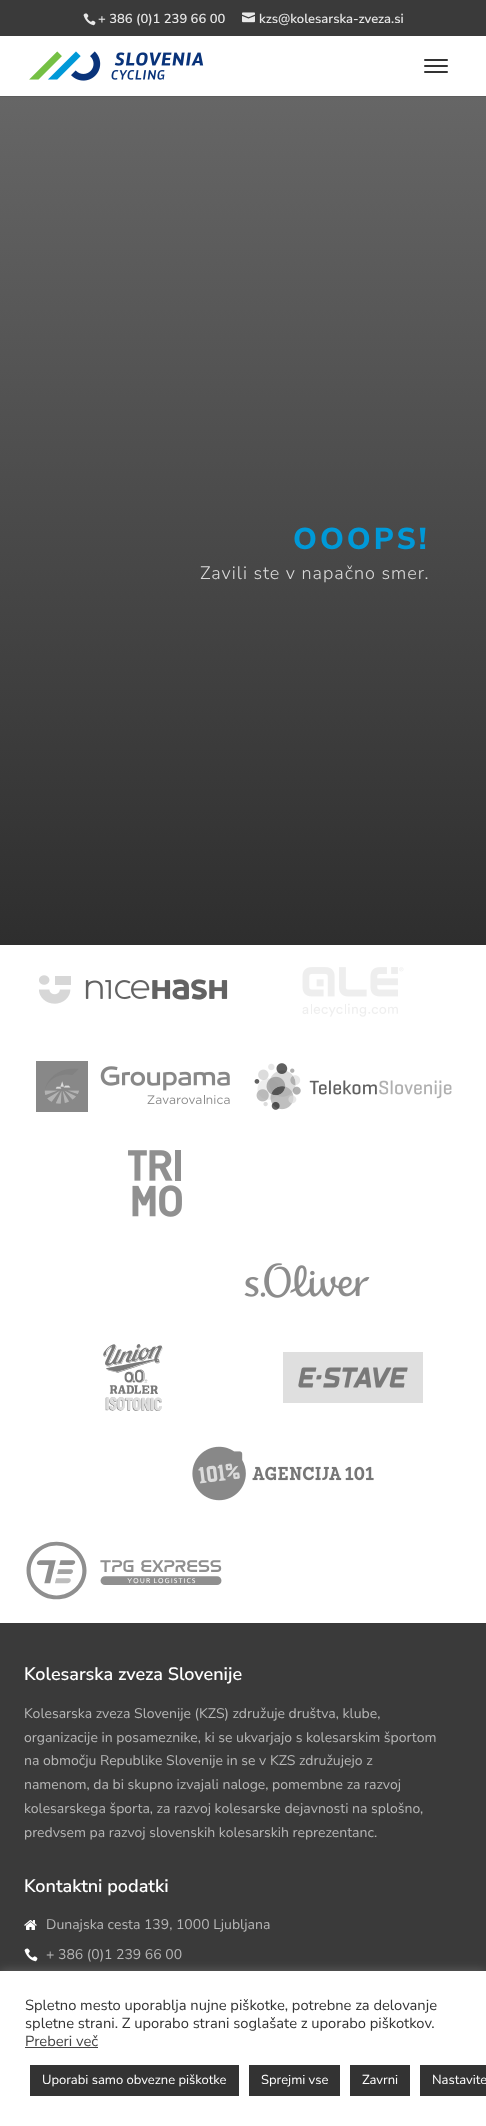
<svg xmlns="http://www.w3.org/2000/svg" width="486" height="2126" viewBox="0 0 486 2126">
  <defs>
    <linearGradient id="g1" gradientUnits="userSpaceOnUse" x1="243" y1="95" x2="243" y2="945"><stop offset="0" stop-color="#666666"/><stop offset="1" stop-color="#2e2e2e"/></linearGradient>
    <filter id="blur1" x="-50%" y="-200%" width="200%" height="500%"><feGaussianBlur stdDeviation="5"/></filter>
  </defs>
  <rect width="100%" height="100%" fill="#ffffff"/>
  <rect x="0" y="0" width="486" height="36" fill="#3a3a3a"/>
  <image x="83" y="13" width="13" height="13" href="img1.png"/>
  <text x="98" y="23" font-family="Nunito Sans" font-size="13" font-weight="600" fill="#e8e8e8">+ 386 (0)1 239 66 00</text>
  <image x="242" y="12" width="13" height="11" href="img2.png"/>
  <text x="259" y="23" font-family="Nunito Sans" font-size="13" font-weight="600" fill="#e8e8e8">kzs@kolesarska-zveza.si</text>
  <rect x="0" y="96" width="486" height="1" fill="#5c5c5c"/>
  <image x="29" y="51" width="175" height="30" href="img3.png"/>
  <rect x="424" y="59" width="24" height="2" rx="1" fill="#333333"/>
  <rect x="424" y="65" width="24" height="2" rx="1" fill="#333333"/>
  <rect x="424" y="71" width="24" height="2" rx="1" fill="#333333"/>
  <rect x="0" y="97" width="486" height="848" fill="url(#g1)"/>
  <text x="293" y="549" font-family="Nunito Sans" font-size="30" font-weight="800" letter-spacing="3" fill="#0099d8">OOOPS!</text>
  <text x="200" y="579" font-family="Nunito Sans" font-size="18" font-weight="300" letter-spacing="1" fill="#dadada">Zavili ste v napačno smer.</text>
  <image x="39" y="975" width="189" height="29" href="img4.png"/>
  <image x="302" y="967" width="102" height="50" href="img5.png"/>
  <image x="36" y="1061" width="194" height="51" href="img6.png"/>
  <image x="254" y="1063" width="198" height="47" href="img7.png"/>
  <image x="128" y="1150" width="54" height="67" href="img8.png"/>
  <image x="244" y="1263" width="126" height="35" href="img9.png"/>
  <image x="103" y="1344" width="60" height="67" href="img10.png"/>
  <image x="283" y="1352" width="140" height="51" href="img11.png"/>
  <image x="192" y="1446" width="182" height="55" href="img12.png"/>
  <image x="26" y="1541" width="196" height="59" href="img13.png"/>
  <rect x="0" y="1623" width="486" height="348" fill="#3a3a3a"/>
  <text x="24" y="1680" font-family="Nunito Sans" font-size="18" font-weight="600" fill="#ffffff">Kolesarska zveza Slovenije</text>
  <text x="24" y="1718" font-family="Nunito Sans" font-size="14" fill="#b7b7b7">Kolesarska zveza Slovenije (KZS) združuje društva, klube,</text>
  <text x="24" y="1742" font-family="Nunito Sans" font-size="14" fill="#b7b7b7">organizacije in posameznike, ki se ukvarjajo s kolesarskim športom</text>
  <text x="24" y="1765" font-family="Nunito Sans" font-size="14" fill="#b7b7b7">na območju Republike Slovenije in se v KZS združujejo z</text>
  <text x="24" y="1789" font-family="Nunito Sans" font-size="14" fill="#b7b7b7">namenom, da bi skupno izvajali naloge, pomembne za razvoj</text>
  <text x="24" y="1813" font-family="Nunito Sans" font-size="14" fill="#b7b7b7">kolesarskega športa, za razvoj kolesarske dejavnosti na splošno,</text>
  <text x="24" y="1837" font-family="Nunito Sans" font-size="14" fill="#b7b7b7">predvsem pa razvoj slovenskih kolesarskih reprezentanc.</text>
  <text x="24" y="1892" font-family="Nunito Sans" font-size="18" font-weight="600" fill="#ffffff">Kontaktni podatki</text>
  <image x="24" y="1920" width="13" height="10" href="img14.png"/>
  <text x="46" y="1929" font-family="Nunito Sans" font-size="14" fill="#b7b7b7">Dunajska cesta 139, 1000 Ljubljana</text>
  <image x="24" y="1948" width="14" height="14" href="img15.png"/>
  <text x="46" y="1959" font-family="Nunito Sans" font-size="14" fill="#b7b7b7">+ 386 (0)1 239 66 00</text>
  <rect x="0" y="1970" width="486" height="155" fill="#acabab" fill-opacity="0.3" filter="url(#blur1)"/>
  <rect x="0" y="1971" width="486" height="155" fill="#ffffff"/>
  <text x="25" y="2010" font-family="Nunito Sans" font-size="14.7" fill="#333333">Spletno mesto uporablja nujne piškotke, potrebne za delovanje</text>
  <text x="25" y="2028" font-family="Nunito Sans" font-size="14.7" fill="#333333">spletne strani. Z uporabo strani soglašate z uporabo piškotkov.</text>
  <text x="25" y="2046" font-family="Nunito Sans" font-size="14.7" fill="#444444">Preberi več</text>
  <rect x="25" y="2047" width="73" height="1" fill="#444444"/>
  <rect x="30" y="2065" width="209" height="31" fill="#333333"/>
  <text x="42" y="2084" font-family="Nunito Sans" font-size="13" fill="#ffffff">Uporabi samo obvezne piškotke</text>
  <rect x="249" y="2065" width="91" height="31" fill="#333333"/>
  <text x="261" y="2084" font-family="Nunito Sans" font-size="13" fill="#ffffff">Sprejmi vse</text>
  <rect x="350" y="2065" width="60" height="31" fill="#333333"/>
  <text x="362" y="2084" font-family="Nunito Sans" font-size="13" fill="#ffffff">Zavrni</text>
  <rect x="420" y="2065" width="66" height="31" fill="#333333"/>
  <text x="432" y="2084" font-family="Nunito Sans" font-size="13" fill="#ffffff">Nastavite</text>
</svg>
